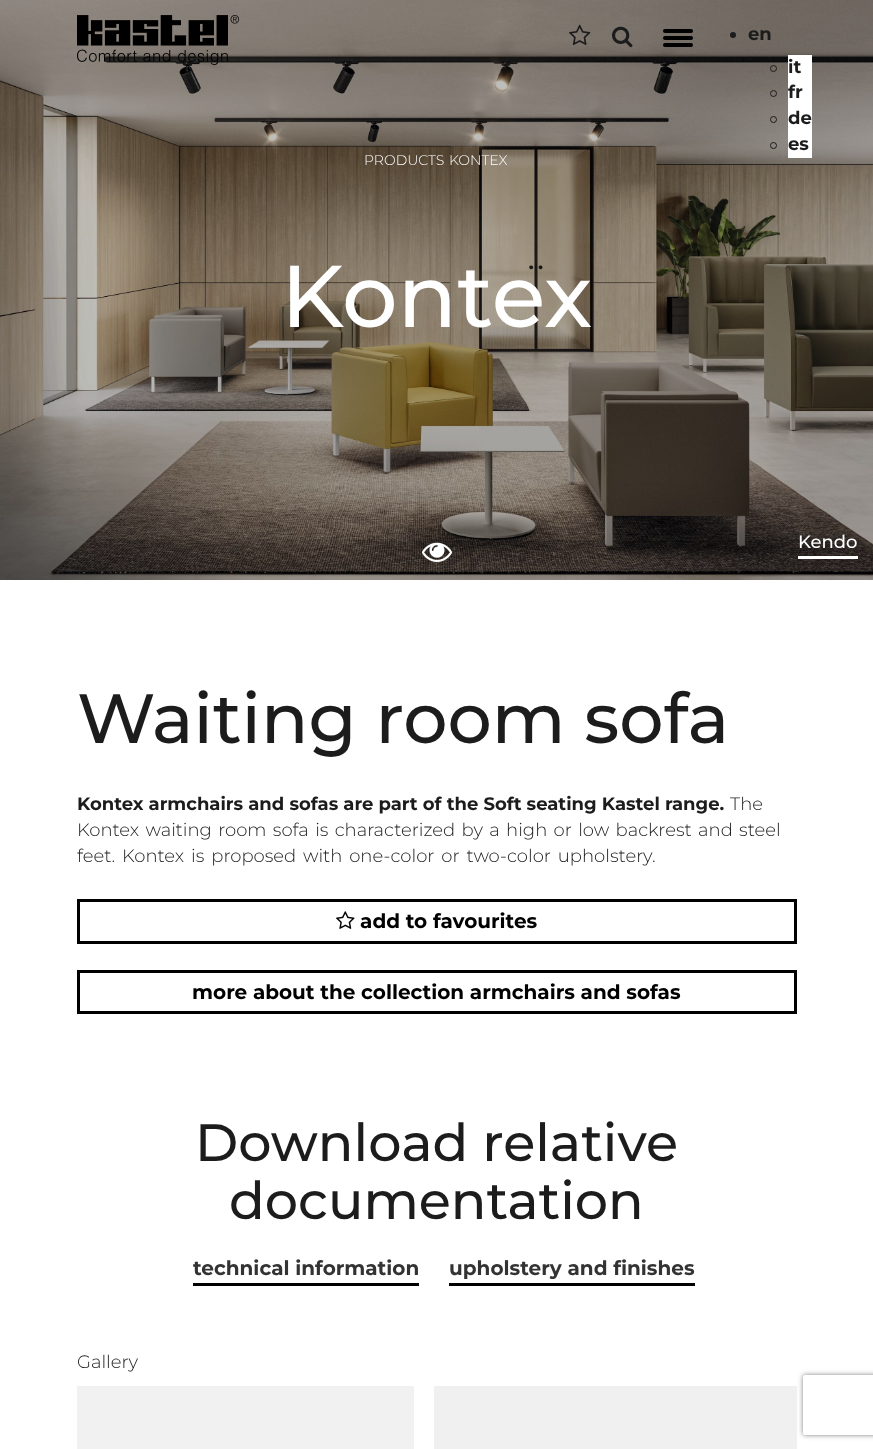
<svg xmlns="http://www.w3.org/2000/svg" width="873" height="1449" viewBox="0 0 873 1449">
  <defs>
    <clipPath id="clip1"><path d="M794 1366H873V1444H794ZM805 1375H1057C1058 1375 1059 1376 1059 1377V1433C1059 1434 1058 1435 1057 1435H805C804 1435 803 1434 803 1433V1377C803 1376 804 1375 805 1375Z" clip-rule="evenodd"/></clipPath>
    <filter id="blur1" x="-50%" y="-200%" width="200%" height="500%"><feGaussianBlur stdDeviation="2.5"/></filter>
  </defs>
  <rect width="100%" height="100%" fill="#ffffff"/>
  <image x="0" y="0" width="873" height="580" href="img4.png"/>
  <image x="77" y="15" width="162" height="50" href="img1.png"/>
  <image x="569" y="24" width="22" height="21" href="img2.png"/>
  <image x="612" y="26" width="21" height="22" href="img3.png"/>
  <rect x="663" y="29" width="30" height="4" rx="2" fill="#000000"/>
  <rect x="663" y="36" width="30" height="4" rx="2" fill="#000000"/>
  <rect x="663" y="43" width="30" height="4" rx="2" fill="#000000"/>
  <circle cx="733" cy="35" r="3" fill="#1c1c1c"/>
  <text x="748" y="40" font-family="Montserrat" font-size="18" font-weight="bold" fill="#1c1c1c">en</text>
  <rect x="788" y="55" width="24" height="103" fill="#ffffff"/>
  <circle cx="773.5" cy="68.5" r="3" fill="none" stroke="#1c1c1c"/>
  <text x="788" y="73" font-family="Montserrat" font-size="18" font-weight="bold" fill="#1c1c1c">it</text>
  <circle cx="773.5" cy="93.5" r="3" fill="none" stroke="#1c1c1c"/>
  <text x="788" y="98" font-family="Montserrat" font-size="18" font-weight="bold" fill="#1c1c1c">fr</text>
  <circle cx="773.5" cy="119.5" r="3" fill="none" stroke="#1c1c1c"/>
  <text x="788" y="124" font-family="Montserrat" font-size="18" font-weight="bold" fill="#1c1c1c">de</text>
  <circle cx="773.5" cy="145.5" r="3" fill="none" stroke="#1c1c1c"/>
  <text x="788" y="150" font-family="Montserrat" font-size="18" font-weight="bold" fill="#1c1c1c">es</text>
  <text x="364" y="165" font-family="Montserrat" font-size="14" font-weight="300" fill="#ffffff">PRODUCTS</text>
  <text x="449" y="165" font-family="Montserrat" font-size="14" font-weight="300" fill="#ffffff">KONTEX</text>
  <text x="281" y="327" font-family="Montserrat" font-size="87.5" font-weight="500" fill="#ffffff">Kontex</text>
  <image x="422" y="542" width="30" height="20" href="img5.png"/>
  <text x="798" y="548" font-family="Montserrat" font-size="18" font-weight="500" fill="#ffffff">Kendo</text>
  <rect x="798" y="556" width="60" height="3" fill="#ffffff"/>
  <text x="77" y="743" font-family="Montserrat" font-size="69.75" font-weight="500" fill="#1c1c1c">Waiting room sofa</text>
  <text x="77" y="810" font-family="Montserrat" font-size="18" font-weight="bold" fill="#1c1c1c">Kontex armchairs and sofas are part of the Soft seating Kastel range.</text>
  <text x="730" y="810" font-family="Montserrat" font-size="18" font-weight="300" fill="#1c1c1c">The</text>
  <text x="77" y="836" word-spacing="1.7" font-family="Montserrat" font-size="18" font-weight="300" fill="#1c1c1c">Kontex waiting room sofa is characterized by a high or low backrest and steel</text>
  <text x="77" y="862" word-spacing="2.25" font-family="Montserrat" font-size="18" font-weight="300" fill="#1c1c1c">feet. Kontex is proposed with one-color or two-color upholstery.</text>
  <rect x="78.5" y="900.5" width="717" height="42" fill="none" stroke="#000000" stroke-width="3"/>
  <image x="336" y="911" width="19" height="18" href="img6.png"/>
  <text x="360" y="928" font-family="Montserrat" font-size="20" font-weight="bold" fill="#000000">add to favourites</text>
  <rect x="78.5" y="971.5" width="717" height="41" fill="none" stroke="#000000" stroke-width="3"/>
  <text x="192" y="999" font-family="Montserrat" font-size="20" font-weight="bold" fill="#000000">more about the collection armchairs and sofas</text>
  <text x="195" y="1161" font-family="Montserrat" font-size="52.4" font-weight="500" fill="#1c1c1c">Download relative</text>
  <text x="229" y="1219" font-family="Montserrat" font-size="52.4" font-weight="500" fill="#1c1c1c">documentation</text>
  <text x="193" y="1275" font-family="Montserrat" font-size="20" font-weight="bold" fill="#333333">technical information</text>
  <rect x="193" y="1283" width="226" height="3" fill="#000000"/>
  <text x="449" y="1275" font-family="Montserrat" font-size="20" font-weight="bold" fill="#333333">upholstery and finishes</text>
  <rect x="449" y="1283" width="246" height="3" fill="#000000"/>
  <text x="77" y="1368" font-family="Montserrat" font-size="18" font-weight="300" fill="#1c1c1c">Gallery</text>
  <rect x="77" y="1386" width="337" height="63" fill="#f1f1f1"/>
  <rect x="434" y="1386" width="363" height="63" fill="#f0f0f0"/>
  <g clip-path="url(#clip1)">
    <rect x="803" y="1375" width="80" height="60" rx="2" fill="#808080" filter="url(#blur1)"/>
  </g>
</svg>
